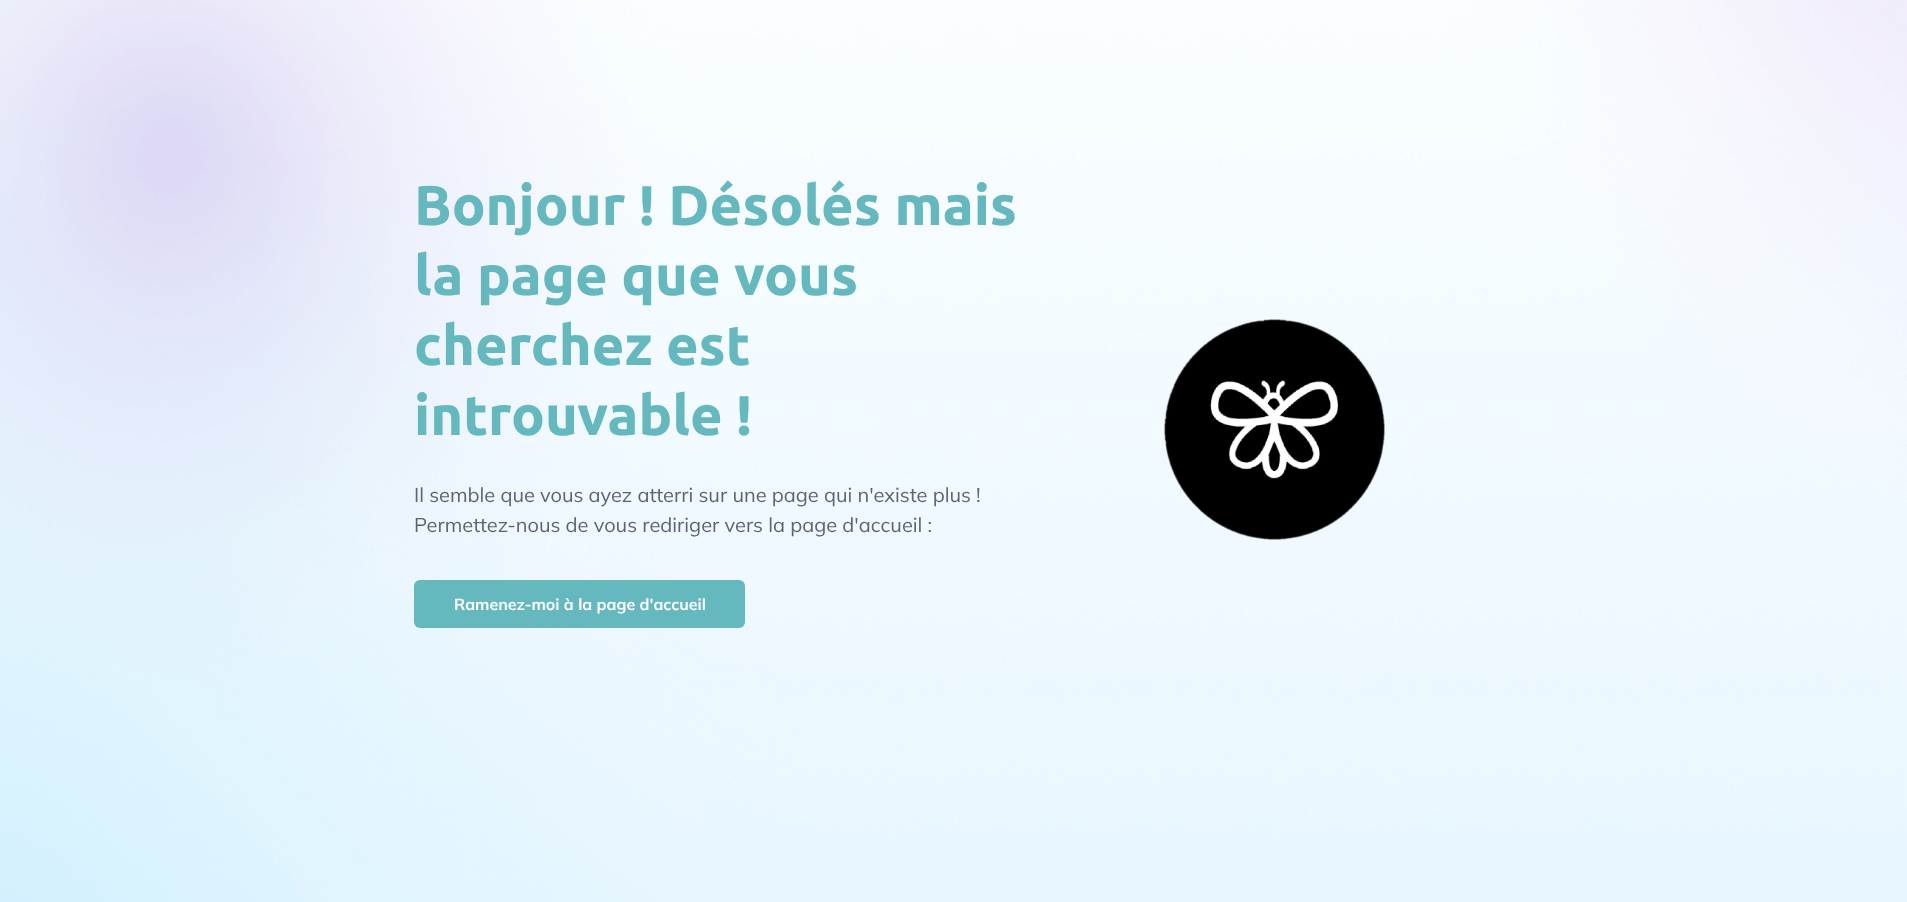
<svg xmlns="http://www.w3.org/2000/svg" width="1907" height="902" viewBox="0 0 1907 902">
  <rect width="100%" height="100%" fill="#ffffff"/>
  <image x="0" y="0" width="1907" height="902" href="img1.png"/>
  <text x="414" y="225" font-family="Ubuntu" font-size="56" font-weight="bold" fill="#65b9be">Bonjour ! Désolés mais</text>
  <text x="414" y="295" font-family="Ubuntu" font-size="56" font-weight="bold" fill="#65b9be">la page que vous</text>
  <text x="414" y="365" font-family="Ubuntu" font-size="56" font-weight="bold" fill="#65b9be">cherchez est</text>
  <text x="414" y="435" font-family="Ubuntu" font-size="56" font-weight="bold" fill="#65b9be">introuvable !</text>
  <text x="414" y="502" font-family="Mulish" font-size="20" fill="#5d646e">Il semble que vous ayez atterri sur une page qui n'existe plus !</text>
  <text x="414" y="532" font-family="Mulish" font-size="20" fill="#5d646e">Permettez-nous de vous rediriger vers la page d'accueil :</text>
  <rect x="414" y="580" width="331" height="48" rx="6" fill="#65b9be"/>
  <text x="454" y="610" font-family="Mulish" font-size="16" font-weight="bold" fill="#ffffff">Ramenez-moi à la page d'accueil</text>
  <image x="1164" y="319" width="221" height="221" href="img2.png"/>
</svg>
